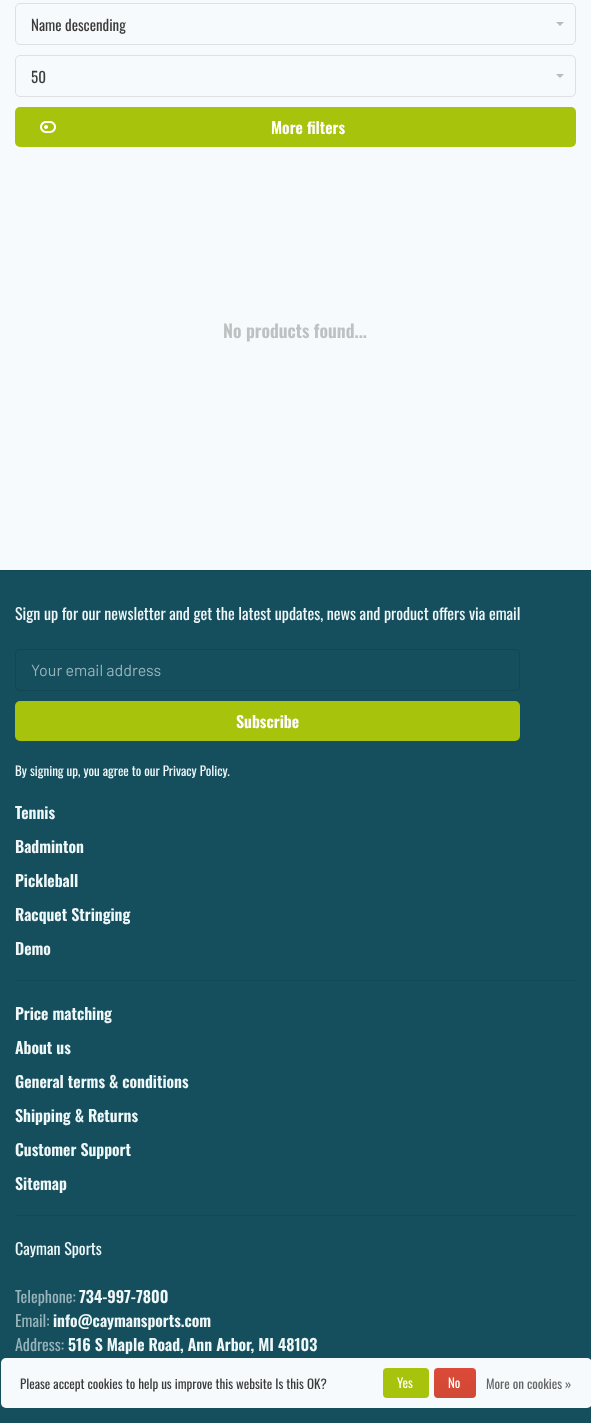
<svg xmlns="http://www.w3.org/2000/svg" width="591" height="1423" viewBox="0 0 591 1423">
  <defs>
    <linearGradient id="g1" gradientUnits="userSpaceOnUse" x1="455" y1="1368" x2="455" y2="1398"><stop offset="0" stop-color="#dc4a38"/><stop offset="1" stop-color="#d14836"/></linearGradient>
  </defs>
  <rect width="100%" height="100%" fill="#f6fafc"/>
  <rect x="15.5" y="3.5" width="560" height="41" rx="4.5" fill="none" stroke="#dde1e3"/>
  <text x="31" y="31" font-family="Oswald" font-size="15" fill="#3b3b3b">Name descending</text>
  <path d="M556 22H564L560 26Z" fill="#bbbbbb"/>
  <rect x="15.5" y="55.5" width="560" height="41" rx="4.5" fill="none" stroke="#dde1e3"/>
  <text x="31" y="83" font-family="Oswald" font-size="15" fill="#3b3b3b">50</text>
  <path d="M556 74H564L560 78Z" fill="#bbbbbb"/>
  <rect x="15" y="107" width="561" height="40" rx="5" fill="#a8c30b"/>
  <image x="40" y="121" width="16" height="12" href="img1.png"/>
  <text x="271" y="134" font-family="Oswald" font-size="16" font-weight="600" fill="#ffffff">More filters</text>
  <text x="223" y="338" font-family="Oswald" font-size="18" font-weight="600" fill="#bec1c2">No products found...</text>
  <rect x="0" y="571" width="591" height="852" fill="#154e5d"/>
  <rect x="0" y="570" width="591" height="1" fill="#134856"/>
  <text x="15" y="620" font-family="Oswald" font-size="16" fill="#eff8f9">Sign up for our newsletter and get the latest updates, news and product offers via email</text>
  <rect x="15.5" y="649.5" width="504" height="41" rx="4.5" fill="none" stroke="#134654"/>
  <text x="31" y="676" font-family="Barlow" font-size="16" fill="#98b4bb">Your email address</text>
  <rect x="15" y="701" width="505" height="40" rx="5" fill="#a8c30b"/>
  <text x="236" y="728" font-family="Oswald" font-size="16" font-weight="600" fill="#ffffff">Subscribe</text>
  <text x="15" y="776" font-family="Oswald" font-size="13" fill="#eff8f9">By signing up, you agree to our Privacy Policy.</text>
  <rect x="15" y="980" width="561" height="1" fill="#134856"/>
  <text x="15" y="819" font-family="Oswald" font-size="16" font-weight="600" fill="#eff8f9">Tennis</text>
  <text x="15" y="853" font-family="Oswald" font-size="16" font-weight="600" fill="#eff8f9">Badminton</text>
  <text x="15" y="887" font-family="Oswald" font-size="16" font-weight="600" fill="#eff8f9">Pickleball</text>
  <text x="15" y="921" font-family="Oswald" font-size="16" font-weight="600" fill="#eff8f9">Racquet Stringing</text>
  <text x="15" y="955" font-family="Oswald" font-size="16" font-weight="600" fill="#eff8f9">Demo</text>
  <rect x="15" y="1215" width="561" height="1" fill="#134856"/>
  <text x="15" y="1020" font-family="Oswald" font-size="16" font-weight="600" fill="#eff8f9">Price matching</text>
  <text x="15" y="1054" font-family="Oswald" font-size="16" font-weight="600" fill="#eff8f9">About us</text>
  <text x="15" y="1088" font-family="Oswald" font-size="16" font-weight="600" fill="#eff8f9">General terms &amp; conditions</text>
  <text x="15" y="1122" font-family="Oswald" font-size="16" font-weight="600" fill="#eff8f9">Shipping &amp; Returns</text>
  <text x="15" y="1156" font-family="Oswald" font-size="16" font-weight="600" fill="#eff8f9">Customer Support</text>
  <text x="15" y="1190" font-family="Oswald" font-size="16" font-weight="600" fill="#eff8f9">Sitemap</text>
  <text x="15" y="1255" font-family="Oswald" font-size="16" fill="#eff8f9">Cayman Sports</text>
  <text x="15" y="1303" font-family="Oswald" font-size="16" fill="#98b4bb">Telephone:</text>
  <text x="79" y="1303" font-family="Oswald" font-size="16" font-weight="600" fill="#eff8f9">734-997-7800</text>
  <text x="15" y="1327" font-family="Oswald" font-size="16" fill="#98b4bb">Email:</text>
  <text x="53" y="1327" font-family="Oswald" font-size="16" font-weight="600" fill="#eff8f9">info@caymansports.com</text>
  <text x="15" y="1351" font-family="Oswald" font-size="16" fill="#98b4bb">Address:</text>
  <text x="68" y="1351" font-family="Oswald" font-size="16" font-weight="600" fill="#eff8f9">516 S Maple Road, Ann Arbor, MI 48103</text>
  <rect x="1" y="1358" width="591" height="50" rx="5" fill="#f6fafc"/>
  <text x="20" y="1389" font-family="Oswald" font-size="13" fill="#3b3b3b">Please accept cookies to help us improve this website Is this OK?</text>
  <rect x="383" y="1368" width="46" height="30" rx="4" fill="#a8c30b"/>
  <text x="397" y="1388" font-family="Oswald" font-size="13" fill="#ffffff">Yes</text>
  <rect x="434" y="1368" width="42" height="30" rx="4" fill="url(#g1)"/>
  <text x="448" y="1388" font-family="Oswald" font-size="13" fill="#ffffff">No</text>
  <text x="486" y="1389" font-family="Oswald" font-size="13" fill="#666666">More on cookies »</text>
</svg>
